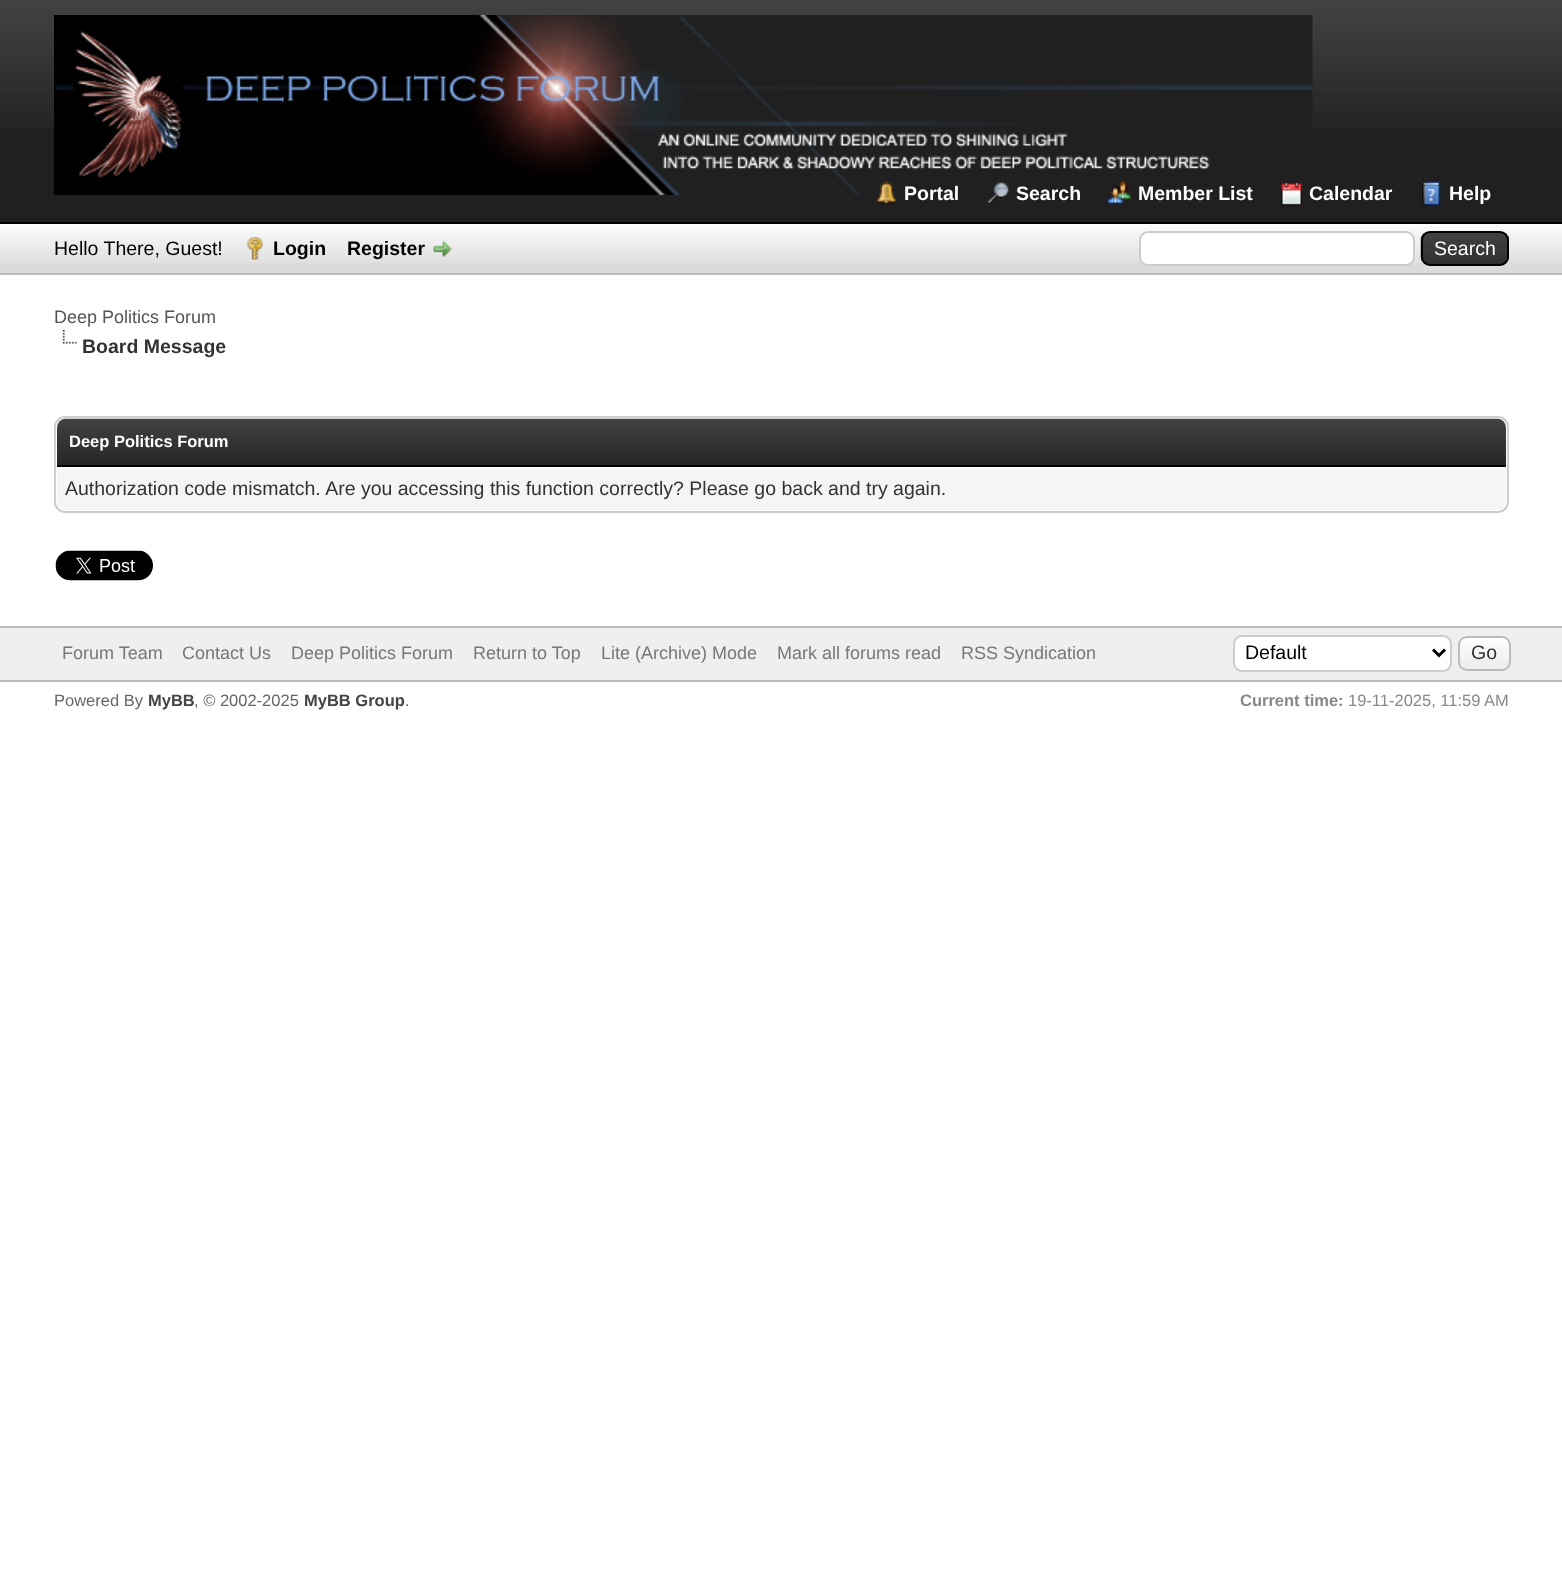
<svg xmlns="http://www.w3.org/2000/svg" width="1562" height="1572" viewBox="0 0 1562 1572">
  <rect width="100%" height="100%" fill="#ffffff"/>
  <rect x="0" y="128" width="1562" height="94" fill="#202020"/>
  <image x="0" y="0" width="1562" height="128" href="img1.png"/>
  <rect x="0" y="222" width="1562" height="2" fill="#000000"/>
  <image x="54" y="15" width="1259" height="180" href="img2.png"/>
  <image x="876" y="181" width="22" height="24" href="img3.png"/>
  <text x="904" y="200" font-family="Liberation Sans" font-size="19.5" font-weight="bold" fill="#ffffff">Portal</text>
  <image x="988" y="181" width="22" height="23" href="img4.png"/>
  <text x="1016" y="200" font-family="Liberation Sans" font-size="19.5" font-weight="bold" fill="#ffffff">Search</text>
  <image x="1107" y="181" width="24" height="24" href="img5.png"/>
  <text x="1138" y="200" font-family="Liberation Sans" font-size="19.5" font-weight="bold" fill="#ffffff">Member List</text>
  <image x="1280" y="181" width="23" height="25" href="img6.png"/>
  <text x="1309" y="200" font-family="Liberation Sans" font-size="19.5" font-weight="bold" fill="#ffffff">Calendar</text>
  <image x="1422" y="181" width="19" height="25" href="img7.png"/>
  <text x="1449" y="200" font-family="Liberation Sans" font-size="19.5" font-weight="bold" fill="#ffffff">Help</text>
  <rect x="0" y="263" width="1562" height="10" fill="#dcdbdc"/>
  <image x="0" y="226" width="1562" height="37" href="img8.png"/>
  <rect x="0" y="273" width="1562" height="2" fill="#bbbbbb"/>
  <text x="54" y="255" font-family="Liberation Sans" font-size="19.5" fill="#000000">Hello There, Guest!</text>
  <image x="247" y="237" width="16" height="23" href="img9.png"/>
  <text x="273" y="255" font-family="Liberation Sans" font-size="19.5" font-weight="bold" fill="#000000">Login</text>
  <text x="347" y="255" font-family="Liberation Sans" font-size="19.5" font-weight="bold" fill="#000000">Register</text>
  <image x="433" y="241" width="19" height="16" href="img10.png"/>
  <rect x="1140" y="232" width="274" height="33" rx="8" fill="#ffffff" stroke="#cccccc" stroke-width="2"/>
  <image x="1420" y="232" width="89" height="33" href="img11.png"/>
  <rect x="1422" y="232" width="86" height="33" rx="8" fill="none" stroke="#000000" stroke-width="2"/>
  <text x="1434" y="255" font-family="Liberation Sans" font-size="19.5" fill="#ffffff">Search</text>
  <text x="54" y="323" font-family="Liberation Sans" font-size="18" fill="#555555">Deep Politics Forum</text>
  <image x="62" y="330" width="15" height="14" href="img12.png"/>
  <text x="82" y="353" font-family="Liberation Sans" font-size="19.5" font-weight="bold" fill="#333333">Board Message</text>
  <rect x="55" y="417" width="1453" height="95" rx="10" fill="none" stroke="#cccccc" stroke-width="2"/>
  <image x="57" y="418" width="1449" height="47" href="img13.png"/>
  <rect x="57" y="465" width="1449" height="2" fill="#000000"/>
  <text x="69" y="447" font-family="Liberation Sans" font-size="16.5" font-weight="bold" fill="#ffffff">Deep Politics Forum</text>
  <path d="M57 467H1506V501C1506 506 1502 510 1497 510H66C61 510 57 506 57 501Z" fill="#f5f5f5"/>
  <rect x="57" y="467" width="1449" height="2" fill="#ffffff"/>
  <text x="65" y="495" font-family="Liberation Sans" font-size="19.5" fill="#333333">Authorization code mismatch. Are you accessing this function correctly? Please go back and try again.</text>
  <image x="55" y="550" width="98" height="31" href="img14.png"/>
  <rect x="0" y="628" width="1562" height="52" fill="#efefef"/>
  <rect x="0" y="626" width="1562" height="2" fill="#bbbbbb"/>
  <rect x="0" y="680" width="1562" height="2" fill="#bbbbbb"/>
  <text x="62" y="659" font-family="Liberation Sans" font-size="18" fill="#777777">Forum Team</text>
  <text x="182" y="659" font-family="Liberation Sans" font-size="18" fill="#777777">Contact Us</text>
  <text x="291" y="659" font-family="Liberation Sans" font-size="18" fill="#777777">Deep Politics Forum</text>
  <text x="473" y="659" font-family="Liberation Sans" font-size="18" fill="#777777">Return to Top</text>
  <text x="601" y="659" font-family="Liberation Sans" font-size="18" fill="#777777">Lite (Archive) Mode</text>
  <text x="777" y="659" font-family="Liberation Sans" font-size="18" fill="#777777">Mark all forums read</text>
  <text x="961" y="659" font-family="Liberation Sans" font-size="18" fill="#777777">RSS Syndication</text>
  <rect x="1234" y="636" width="217" height="35" rx="8" fill="#ffffff" stroke="#cccccc" stroke-width="2"/>
  <path d="M1433 649.5L1439 655.5L1445 649.5" fill="none" stroke="#000000" stroke-width="3"/>
  <text x="1245" y="659" font-family="Liberation Sans" font-size="19.5" fill="#000000">Default</text>
  <image x="1458" y="637" width="52" height="22" href="img15.png"/>
  <rect x="1459" y="637" width="51" height="33" rx="8" fill="none" stroke="#bbbbbb" stroke-width="2"/>
  <text x="1471" y="659" font-family="Liberation Sans" font-size="19.5" fill="#333333">Go</text>
  <text x="54" y="706" font-family="Liberation Sans" font-size="16.5" fill="#666666">Powered By</text>
  <text x="148" y="706" font-family="Liberation Sans" font-size="16.5" font-weight="bold" fill="#444444">MyBB</text>
  <text x="194" y="706" font-family="Liberation Sans" font-size="16.5" fill="#666666">, © 2002-2025</text>
  <text x="304" y="706" font-family="Liberation Sans" font-size="16.5" font-weight="bold" fill="#444444">MyBB Group</text>
  <text x="405" y="706" font-family="Liberation Sans" font-size="16.5" fill="#666666">.</text>
  <text x="1240" y="706" font-family="Liberation Sans" font-size="16.5" font-weight="bold" fill="#888888">Current time:</text>
  <text x="1348" y="706" font-family="Liberation Sans" font-size="16.5" fill="#888888">19-11-2025, 11:59 AM</text>
</svg>
